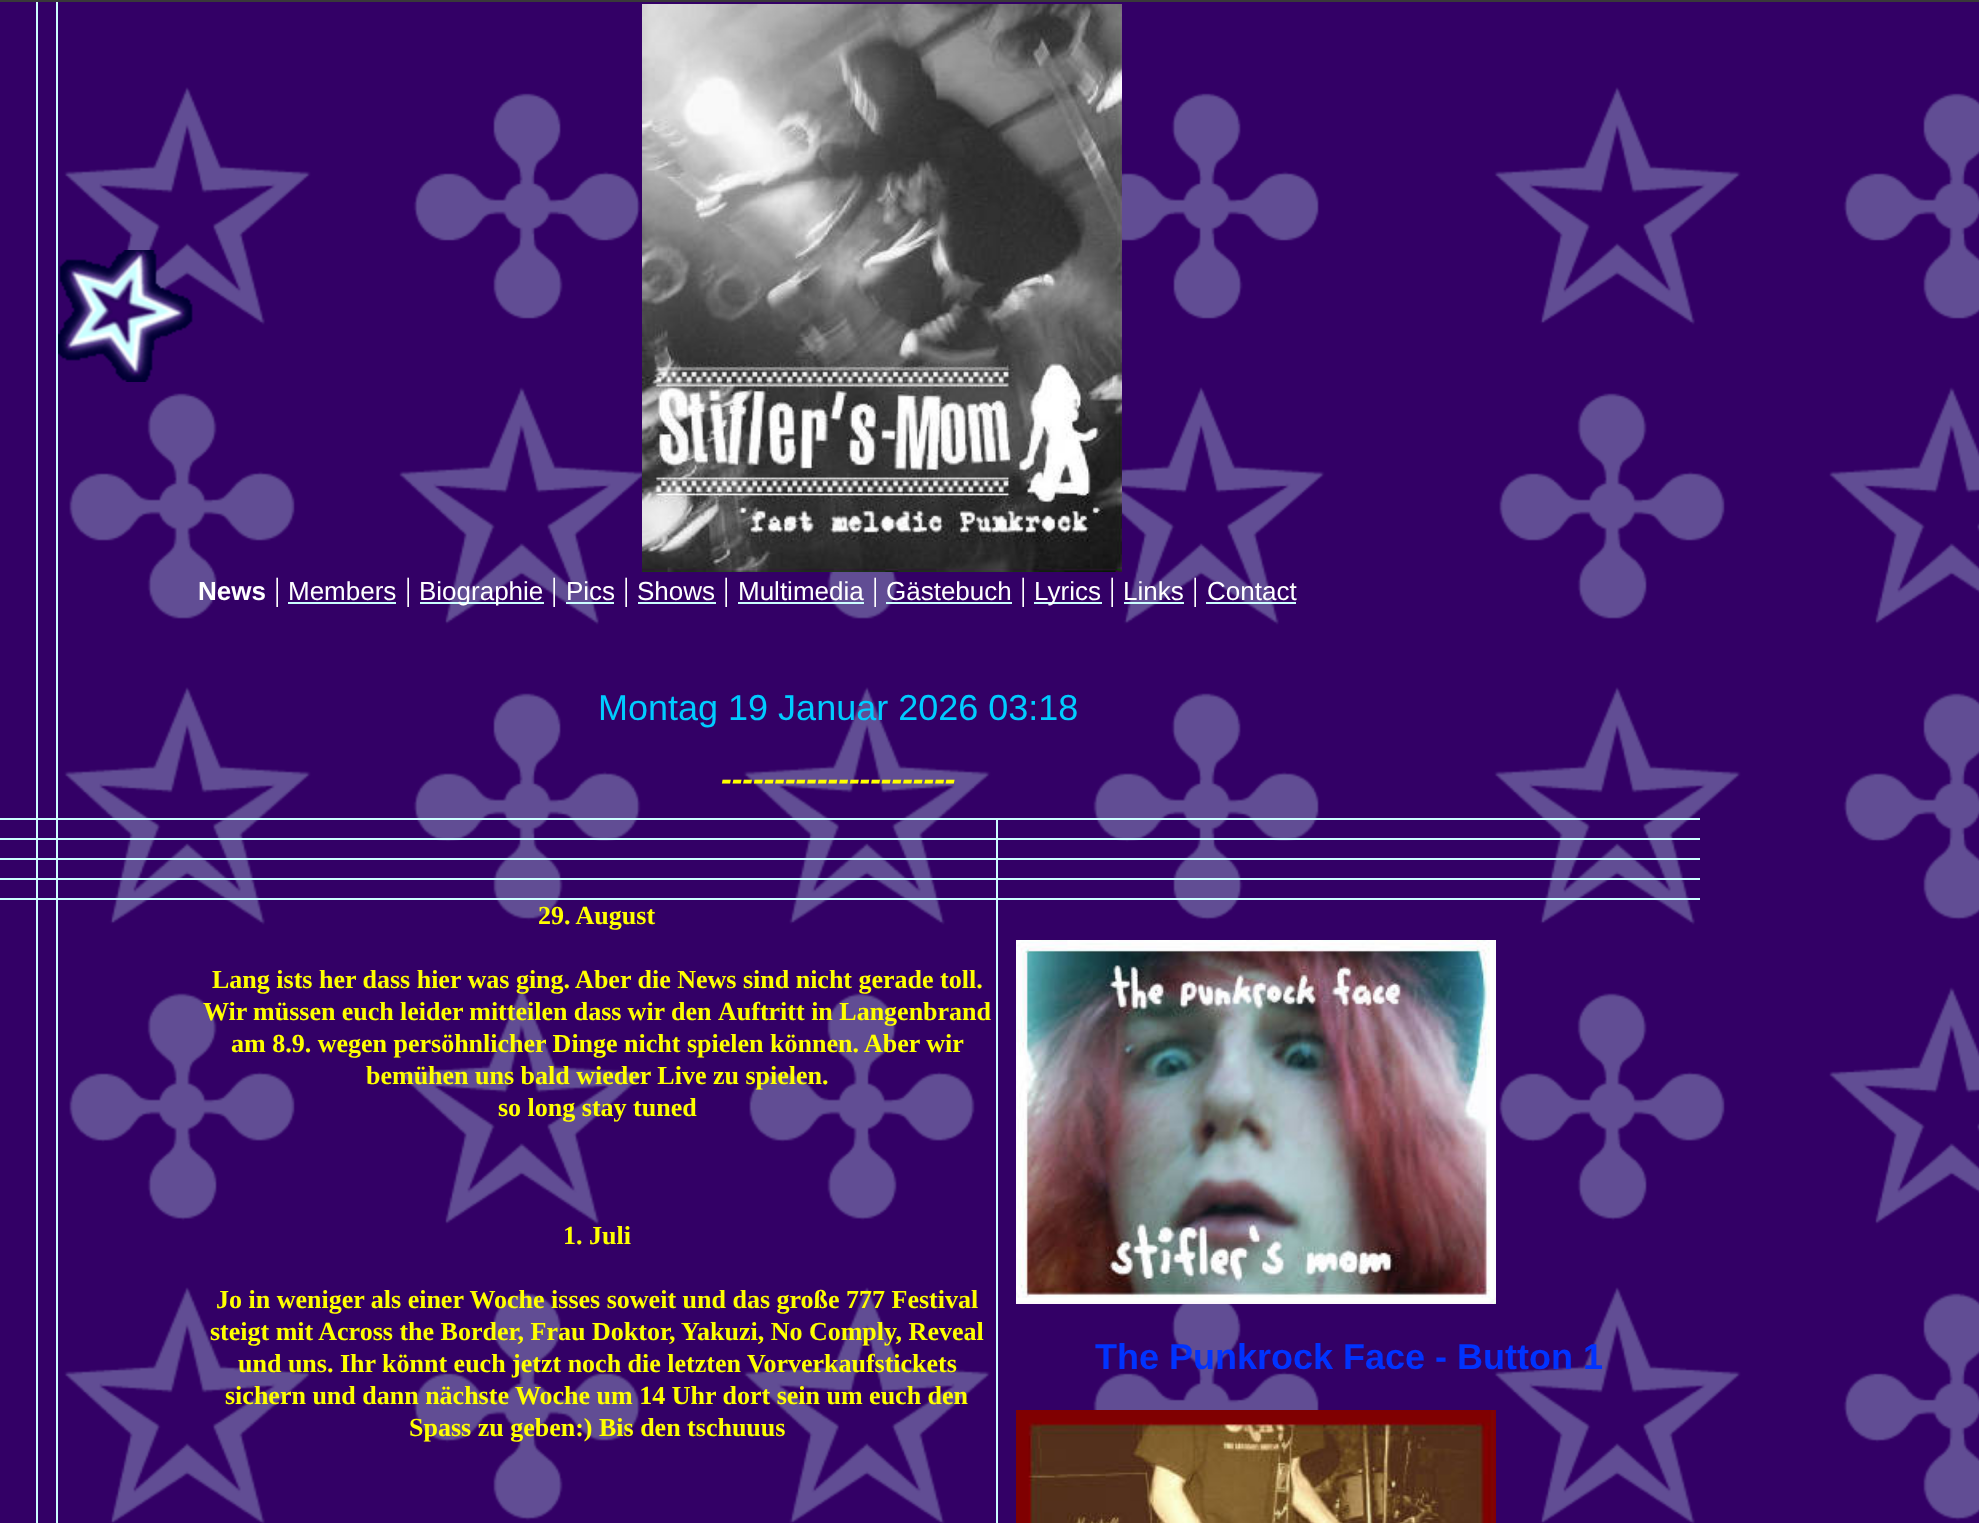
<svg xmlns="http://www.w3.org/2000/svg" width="1979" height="1523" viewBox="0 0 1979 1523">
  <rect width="100%" height="100%" fill="#ffffff"/>
  <image x="0" y="2" width="1979" height="1521" href="img1.png"/>
  <rect x="0" y="0" width="1979" height="2" fill="#393939"/>
  <rect x="36" y="2" width="2" height="816" fill="#ccffff"/>
  <rect x="56" y="2" width="2" height="816" fill="#ccffff"/>
  <image x="58" y="250" width="135" height="132" href="img2.png"/>
  <image x="642" y="4" width="480" height="568" href="img3.png"/>
  <text x="198" y="600" font-family="Liberation Sans" font-size="26" font-weight="bold" fill="#ffffff">News</text>
  <text x="274" y="600" font-family="Liberation Serif" font-size="32" fill="#ffffff">|</text>
  <text x="288" y="600" font-family="Liberation Sans" font-size="26" fill="#ffffff">Members</text>
  <rect x="288" y="602" width="108" height="2" fill="#ccffff"/>
  <text x="405" y="600" font-family="Liberation Serif" font-size="32" fill="#ffffff">|</text>
  <rect x="420" y="602" width="124" height="2" fill="#ccffff"/>
  <text x="419" y="600" font-family="Liberation Sans" font-size="26" fill="#ffffff">Biographie</text>
  <text x="551" y="600" font-family="Liberation Serif" font-size="32" fill="#ffffff">|</text>
  <text x="566" y="600" font-family="Liberation Sans" font-size="26" fill="#ffffff">Pics</text>
  <rect x="566" y="602" width="48" height="2" fill="#ccffff"/>
  <text x="623" y="600" font-family="Liberation Serif" font-size="32" fill="#ffffff">|</text>
  <text x="637" y="600" font-family="Liberation Sans" font-size="26" fill="#ffffff">Shows</text>
  <rect x="638" y="602" width="78" height="2" fill="#ccffff"/>
  <text x="723" y="600" font-family="Liberation Serif" font-size="32" fill="#ffffff">|</text>
  <text x="738" y="600" font-family="Liberation Sans" font-size="26" fill="#ffffff">Multimedia</text>
  <rect x="738" y="602" width="126" height="2" fill="#ccffff"/>
  <text x="872" y="600" font-family="Liberation Serif" font-size="32" fill="#ffffff">|</text>
  <text x="886" y="600" font-family="Liberation Sans" font-size="26" fill="#ffffff">Gästebuch</text>
  <rect x="886" y="602" width="126" height="2" fill="#ccffff"/>
  <text x="1020" y="600" font-family="Liberation Serif" font-size="32" fill="#ffffff">|</text>
  <rect x="1034" y="602" width="68" height="2" fill="#ccffff"/>
  <text x="1034" y="600" font-family="Liberation Sans" font-size="26" fill="#ffffff">Lyrics</text>
  <text x="1109" y="600" font-family="Liberation Serif" font-size="32" fill="#ffffff">|</text>
  <text x="1123" y="600" font-family="Liberation Sans" font-size="26" fill="#ffffff">Links</text>
  <rect x="1124" y="602" width="60" height="2" fill="#ccffff"/>
  <text x="1192" y="600" font-family="Liberation Serif" font-size="32" fill="#ffffff">|</text>
  <text x="1207" y="600" font-family="Liberation Sans" font-size="26" fill="#ffffff">Contact</text>
  <rect x="1206" y="602" width="90" height="2" fill="#ccffff"/>
  <text x="598" y="720" font-family="Liberation Sans" font-size="36" fill="#00ccff">Montag 19 Januar 2026 03:18</text>
  <text x="721" y="790" font-family="Liberation Sans" font-size="32" font-weight="bold" font-style="italic" fill="#ffff00">----------------------</text>
  <rect x="0" y="818" width="1700" height="2" fill="#ccffff"/>
  <rect x="36" y="820" width="2" height="18" fill="#ccffff"/>
  <rect x="56" y="820" width="2" height="18" fill="#ccffff"/>
  <rect x="996" y="820" width="2" height="18" fill="#ccffff"/>
  <rect x="0" y="838" width="1700" height="2" fill="#ccffff"/>
  <rect x="36" y="840" width="2" height="18" fill="#ccffff"/>
  <rect x="56" y="840" width="2" height="18" fill="#ccffff"/>
  <rect x="996" y="840" width="2" height="18" fill="#ccffff"/>
  <rect x="0" y="858" width="1700" height="2" fill="#ccffff"/>
  <rect x="36" y="860" width="2" height="18" fill="#ccffff"/>
  <rect x="56" y="860" width="2" height="18" fill="#ccffff"/>
  <rect x="996" y="860" width="2" height="18" fill="#ccffff"/>
  <rect x="0" y="878" width="1700" height="2" fill="#ccffff"/>
  <rect x="36" y="880" width="2" height="18" fill="#ccffff"/>
  <rect x="56" y="880" width="2" height="18" fill="#ccffff"/>
  <rect x="996" y="880" width="2" height="18" fill="#ccffff"/>
  <rect x="0" y="898" width="1700" height="2" fill="#ccffff"/>
  <rect x="36" y="900" width="2" height="623" fill="#ccffff"/>
  <rect x="56" y="900" width="2" height="623" fill="#ccffff"/>
  <text x="538" y="924" font-family="Liberation Serif" font-size="26" font-weight="bold" fill="#ffff00">29. August</text>
  <text x="212" y="988" font-family="Liberation Serif" font-size="26" font-weight="bold" fill="#ffff00">Lang ists her dass hier was ging. Aber die News sind nicht gerade toll.</text>
  <text x="203" y="1020" word-spacing="-0.25" font-family="Liberation Serif" font-size="26" font-weight="bold" fill="#ffff00">Wir müssen euch leider mitteilen dass wir den</text>
  <text x="718" y="1020" font-family="Liberation Serif" font-size="26" font-weight="bold" fill="#ffff00">Auftritt in Langenbrand</text>
  <text x="231" y="1052" font-family="Liberation Serif" font-size="26" font-weight="bold" fill="#ffff00">am 8.9. wegen persöhnlicher Dinge nicht spielen können. Aber wir</text>
  <text x="366" y="1084" font-family="Liberation Serif" font-size="26" font-weight="bold" fill="#ffff00">bemühen uns bald wieder Live zu spielen.</text>
  <text x="498" y="1116" font-family="Liberation Serif" font-size="26" font-weight="bold" fill="#ffff00">so long stay tuned</text>
  <text x="563" y="1244" font-family="Liberation Serif" font-size="26" font-weight="bold" fill="#ffff00">1. Juli</text>
  <text x="216" y="1308" font-family="Liberation Serif" font-size="26" font-weight="bold" fill="#ffff00">Jo in weniger als einer Woche isses soweit und das große 777 Festival</text>
  <text x="210" y="1340" font-family="Liberation Serif" font-size="26" font-weight="bold" fill="#ffff00">steigt mit Across the Border, Frau Doktor, Yakuzi, No Comply, Reveal</text>
  <text x="238" y="1372" font-family="Liberation Serif" font-size="26" font-weight="bold" fill="#ffff00">und uns. Ihr könnt euch jetzt noch die letzten Vorverkaufstickets</text>
  <text x="225" y="1404" font-family="Liberation Serif" font-size="26" font-weight="bold" fill="#ffff00">sichern und dann nächste Woche um 14 Uhr dort sein um euch den</text>
  <text x="409" y="1436" font-family="Liberation Serif" font-size="26" font-weight="bold" fill="#ffff00">Spass zu geben:) Bis den tschuuus</text>
  <rect x="996" y="900" width="2" height="623" fill="#ccffff"/>
  <image x="1016" y="940" width="480" height="364" href="img4.png"/>
  <text x="1095" y="1369" font-family="Liberation Sans" font-size="36" font-weight="bold" fill="#0033ff">The Punkrock Face - Button 1</text>
  <image x="1016" y="1410" width="480" height="113" href="img5.png"/>
</svg>
